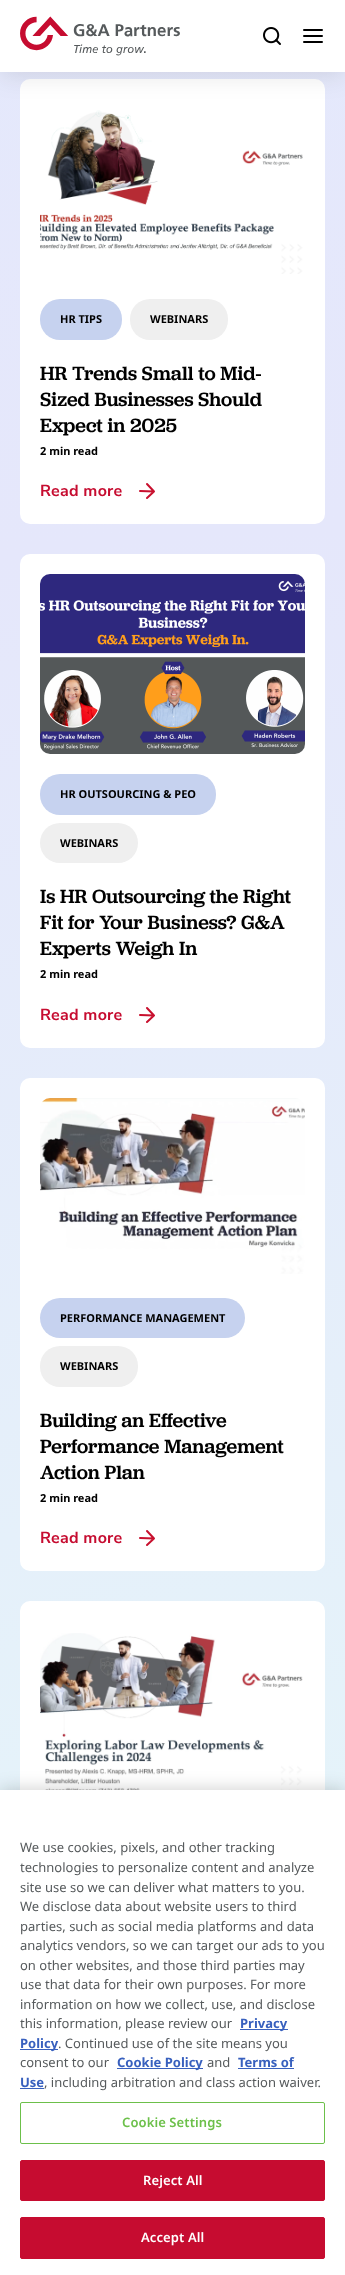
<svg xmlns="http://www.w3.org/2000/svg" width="345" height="2275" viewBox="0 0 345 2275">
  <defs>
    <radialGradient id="g1" gradientUnits="userSpaceOnUse" cx="345" cy="2424" r="6322"><stop offset="0" stop-color="#e5f9f9"/><stop offset="0.3" stop-color="#e5e7fb"/><stop offset="0.6" stop-color="#e4edfd"/><stop offset="1" stop-color="#e5f9f9"/></radialGradient>
    <filter id="blur1" x="-50%" y="-200%" width="200%" height="500%"><feGaussianBlur stdDeviation="12.5"/></filter>
    <filter id="blur2" x="-50%" y="-200%" width="200%" height="500%"><feGaussianBlur stdDeviation="9"/></filter>
  </defs>
  <rect width="100%" height="100%" fill="#ffffff"/>
  <rect x="0" y="72" width="345" height="1718" fill="url(#g1)"/>
  <rect x="20" y="79" width="305" height="445" rx="10" fill="#ffffff"/>
  <image x="40" y="110" width="263" height="164" href="img3.png"/>
  <rect x="0" y="4" width="345" height="72" fill="#000000" fill-opacity="0.1" filter="url(#blur1)"/>
  <rect x="0" y="0" width="345" height="72" fill="#ffffff"/>
  <image x="20" y="16" width="160" height="40" href="img1.png"/>
  <image x="263" y="27" width="18" height="18" href="img2.png"/>
  <path d="M304 36H322M304 30H322M304 42H322" fill="none" stroke="#000000" stroke-width="2" stroke-linecap="round" stroke-linejoin="round"/>
  <rect x="40" y="299" width="82" height="41" rx="20" fill="#c6d2ef"/>
  <text x="60" y="323" font-family="Noto Sans" font-size="11" font-weight="bold" fill="#000000">HR TIPS</text>
  <rect x="130" y="299" width="98" height="41" rx="20" fill="#efefef"/>
  <text x="150" y="323" font-family="Noto Sans" font-size="11" font-weight="bold" fill="#000000">WEBINARS</text>
  <text x="40" y="380" font-family="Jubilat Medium" font-size="20" font-weight="500" fill="#000000">HR Trends Small to Mid-</text>
  <text x="40" y="406" font-family="Jubilat Medium" font-size="20" font-weight="500" fill="#000000">Sized Businesses Should</text>
  <text x="40" y="432" font-family="Jubilat Medium" font-size="20" font-weight="500" fill="#000000">Expect in 2025</text>
  <text x="40" y="455" font-family="Noto Sans" font-size="11" font-weight="bold" fill="#000000">2 min read</text>
  <text x="40" y="496" font-family="Nunito Sans" font-size="16" font-weight="bold" letter-spacing="0.25" fill="#c60c30">Read more</text>
  <path d="M140 491L154 491.5M154 491.5L147 484M154 491.5L147 498" fill="none" stroke="#c8102e" stroke-width="2" stroke-linecap="round" stroke-linejoin="round"/>
  <rect x="20" y="554" width="305" height="494" rx="10" fill="#ffffff"/>
  <image x="40" y="574" width="265" height="180" href="img4.png"/>
  <rect x="40" y="774" width="176" height="41" rx="20" fill="#c6d2ef"/>
  <text x="60" y="798" font-family="Noto Sans" font-size="11" font-weight="bold" fill="#000000">HR OUTSOURCING &amp; PEO</text>
  <rect x="40" y="823" width="98" height="40" rx="20" fill="#efefef"/>
  <text x="60" y="847" font-family="Noto Sans" font-size="11" font-weight="bold" fill="#000000">WEBINARS</text>
  <text x="40" y="903" font-family="Jubilat Medium" font-size="20" font-weight="500" fill="#000000">Is HR Outsourcing the Right</text>
  <text x="40" y="929" font-family="Jubilat Medium" font-size="20" font-weight="500" fill="#000000">Fit for Your Business? G&amp;A</text>
  <text x="40" y="955" font-family="Jubilat Medium" font-size="20" font-weight="500" fill="#000000">Experts Weigh In</text>
  <text x="40" y="978" font-family="Noto Sans" font-size="11" font-weight="bold" fill="#000000">2 min read</text>
  <text x="40" y="1020" font-family="Nunito Sans" font-size="16" font-weight="bold" letter-spacing="0.25" fill="#c60c30">Read more</text>
  <path d="M140 1015L154 1015.5M154 1015.5L147 1008M154 1015.5L147 1022" fill="none" stroke="#c8102e" stroke-width="2" stroke-linecap="round" stroke-linejoin="round"/>
  <rect x="20" y="1078" width="305" height="493" rx="10" fill="#ffffff"/>
  <image x="40" y="1098" width="265" height="176" href="img5.png"/>
  <rect x="40" y="1298" width="205" height="40" rx="20" fill="#c6d2ef"/>
  <text x="60" y="1322" font-family="Noto Sans" font-size="11" font-weight="bold" fill="#000000">PERFORMANCE MANAGEMENT</text>
  <rect x="40" y="1346" width="98" height="41" rx="20" fill="#efefef"/>
  <text x="60" y="1370" font-family="Noto Sans" font-size="11" font-weight="bold" fill="#000000">WEBINARS</text>
  <text x="40" y="1427" font-family="Jubilat Medium" font-size="20" font-weight="500" fill="#000000">Building an Effective</text>
  <text x="40" y="1453" font-family="Jubilat Medium" font-size="20" font-weight="500" fill="#000000">Performance Management</text>
  <text x="40" y="1479" font-family="Jubilat Medium" font-size="20" font-weight="500" fill="#000000">Action Plan</text>
  <text x="40" y="1502" font-family="Noto Sans" font-size="11" font-weight="bold" fill="#000000">2 min read</text>
  <text x="40" y="1543" font-family="Nunito Sans" font-size="16" font-weight="bold" letter-spacing="0.25" fill="#c60c30">Read more</text>
  <path d="M140 1538L154 1538.5M154 1538.5L147 1531M154 1538.5L147 1545" fill="none" stroke="#c8102e" stroke-width="2" stroke-linecap="round" stroke-linejoin="round"/>
  <rect x="20" y="1601" width="305" height="445" rx="10" fill="#ffffff"/>
  <image x="40" y="1633" width="263" height="157" href="img6.png"/>
  <rect x="0" y="1790" width="345" height="485" fill="#000000" fill-opacity="0.2" filter="url(#blur2)"/>
  <rect x="0" y="1790" width="345" height="485" fill="#ffffff"/>
  <text x="20" y="1852" font-family="Noto Sans" font-size="13" fill="#565a5c">We use cookies, pixels, and other tracking</text>
  <text x="20" y="1872" font-family="Noto Sans" font-size="13" fill="#565a5c">technologies to personalize content and analyze</text>
  <text x="20" y="1892" font-family="Noto Sans" font-size="13" fill="#565a5c">site use so we can deliver what matters to you.</text>
  <text x="20" y="1911" font-family="Noto Sans" font-size="13" fill="#565a5c">We disclose data about website users to third</text>
  <text x="20" y="1931" font-family="Noto Sans" font-size="13" fill="#565a5c">parties, such as social media platforms and data</text>
  <text x="20" y="1950" font-family="Noto Sans" font-size="13" fill="#565a5c">analytics vendors, so we can target our ads to you</text>
  <text x="20" y="1970" font-family="Noto Sans" font-size="13" fill="#565a5c">on other websites, and those third parties may</text>
  <text x="20" y="1989" font-family="Noto Sans" font-size="13" fill="#565a5c">use that data for their own purposes. For more</text>
  <text x="20" y="2009" font-family="Noto Sans" font-size="13" fill="#565a5c">information on how we collect, use, and disclose</text>
  <text x="20" y="2028" font-family="Noto Sans" font-size="13" fill="#565a5c">this information, please review our</text>
  <rect x="240" y="2029" width="48" height="1" fill="#3860be"/>
  <text x="240" y="2028" font-family="Noto Sans" font-size="13" font-weight="bold" fill="#3860be">Privacy</text>
  <rect x="20" y="2049" width="38" height="1" fill="#3860be"/>
  <text x="20" y="2048" font-family="Noto Sans" font-size="13" font-weight="bold" fill="#3860be">Policy</text>
  <text x="58" y="2048" font-family="Noto Sans" font-size="13" fill="#565a5c">. Continued use of the site means you</text>
  <text x="20" y="2067" font-family="Noto Sans" font-size="13" fill="#565a5c">consent to our</text>
  <rect x="117" y="2068" width="86" height="1" fill="#3860be"/>
  <text x="117" y="2067" font-family="Noto Sans" font-size="13" font-weight="bold" fill="#3860be">Cookie Policy</text>
  <text x="207" y="2067" font-family="Noto Sans" font-size="13" fill="#565a5c">and</text>
  <text x="238" y="2067" font-family="Noto Sans" font-size="13" font-weight="bold" fill="#3860be">Terms of</text>
  <rect x="238" y="2068" width="56" height="1" fill="#3860be"/>
  <text x="20" y="2087" font-family="Noto Sans" font-size="13" font-weight="bold" fill="#3860be">Use</text>
  <rect x="20" y="2088" width="24" height="1" fill="#3860be"/>
  <text x="44" y="2087" font-family="Noto Sans" font-size="13" fill="#565a5c">, including arbitration and class action waiver.</text>
  <rect x="20.5" y="2102.5" width="304" height="41" rx="1.5" fill="none" stroke="#6cc04a"/>
  <text x="122" y="2127" font-family="Noto Sans" font-size="13" font-weight="600" letter-spacing="0.1" fill="#6cc04a">Cookie Settings</text>
  <rect x="20.5" y="2160.5" width="304" height="40" rx="1.5" fill="#c60c30" stroke="#c60c30"/>
  <text x="143" y="2185" font-family="Noto Sans" font-size="13" font-weight="600" letter-spacing="0.1" fill="#ffffff">Reject All</text>
  <rect x="20.5" y="2217.5" width="304" height="41" rx="1.5" fill="#c60c30" stroke="#c60c30"/>
  <text x="141" y="2242" font-family="Noto Sans" font-size="13" font-weight="600" letter-spacing="0.1" fill="#ffffff">Accept All</text>
</svg>
